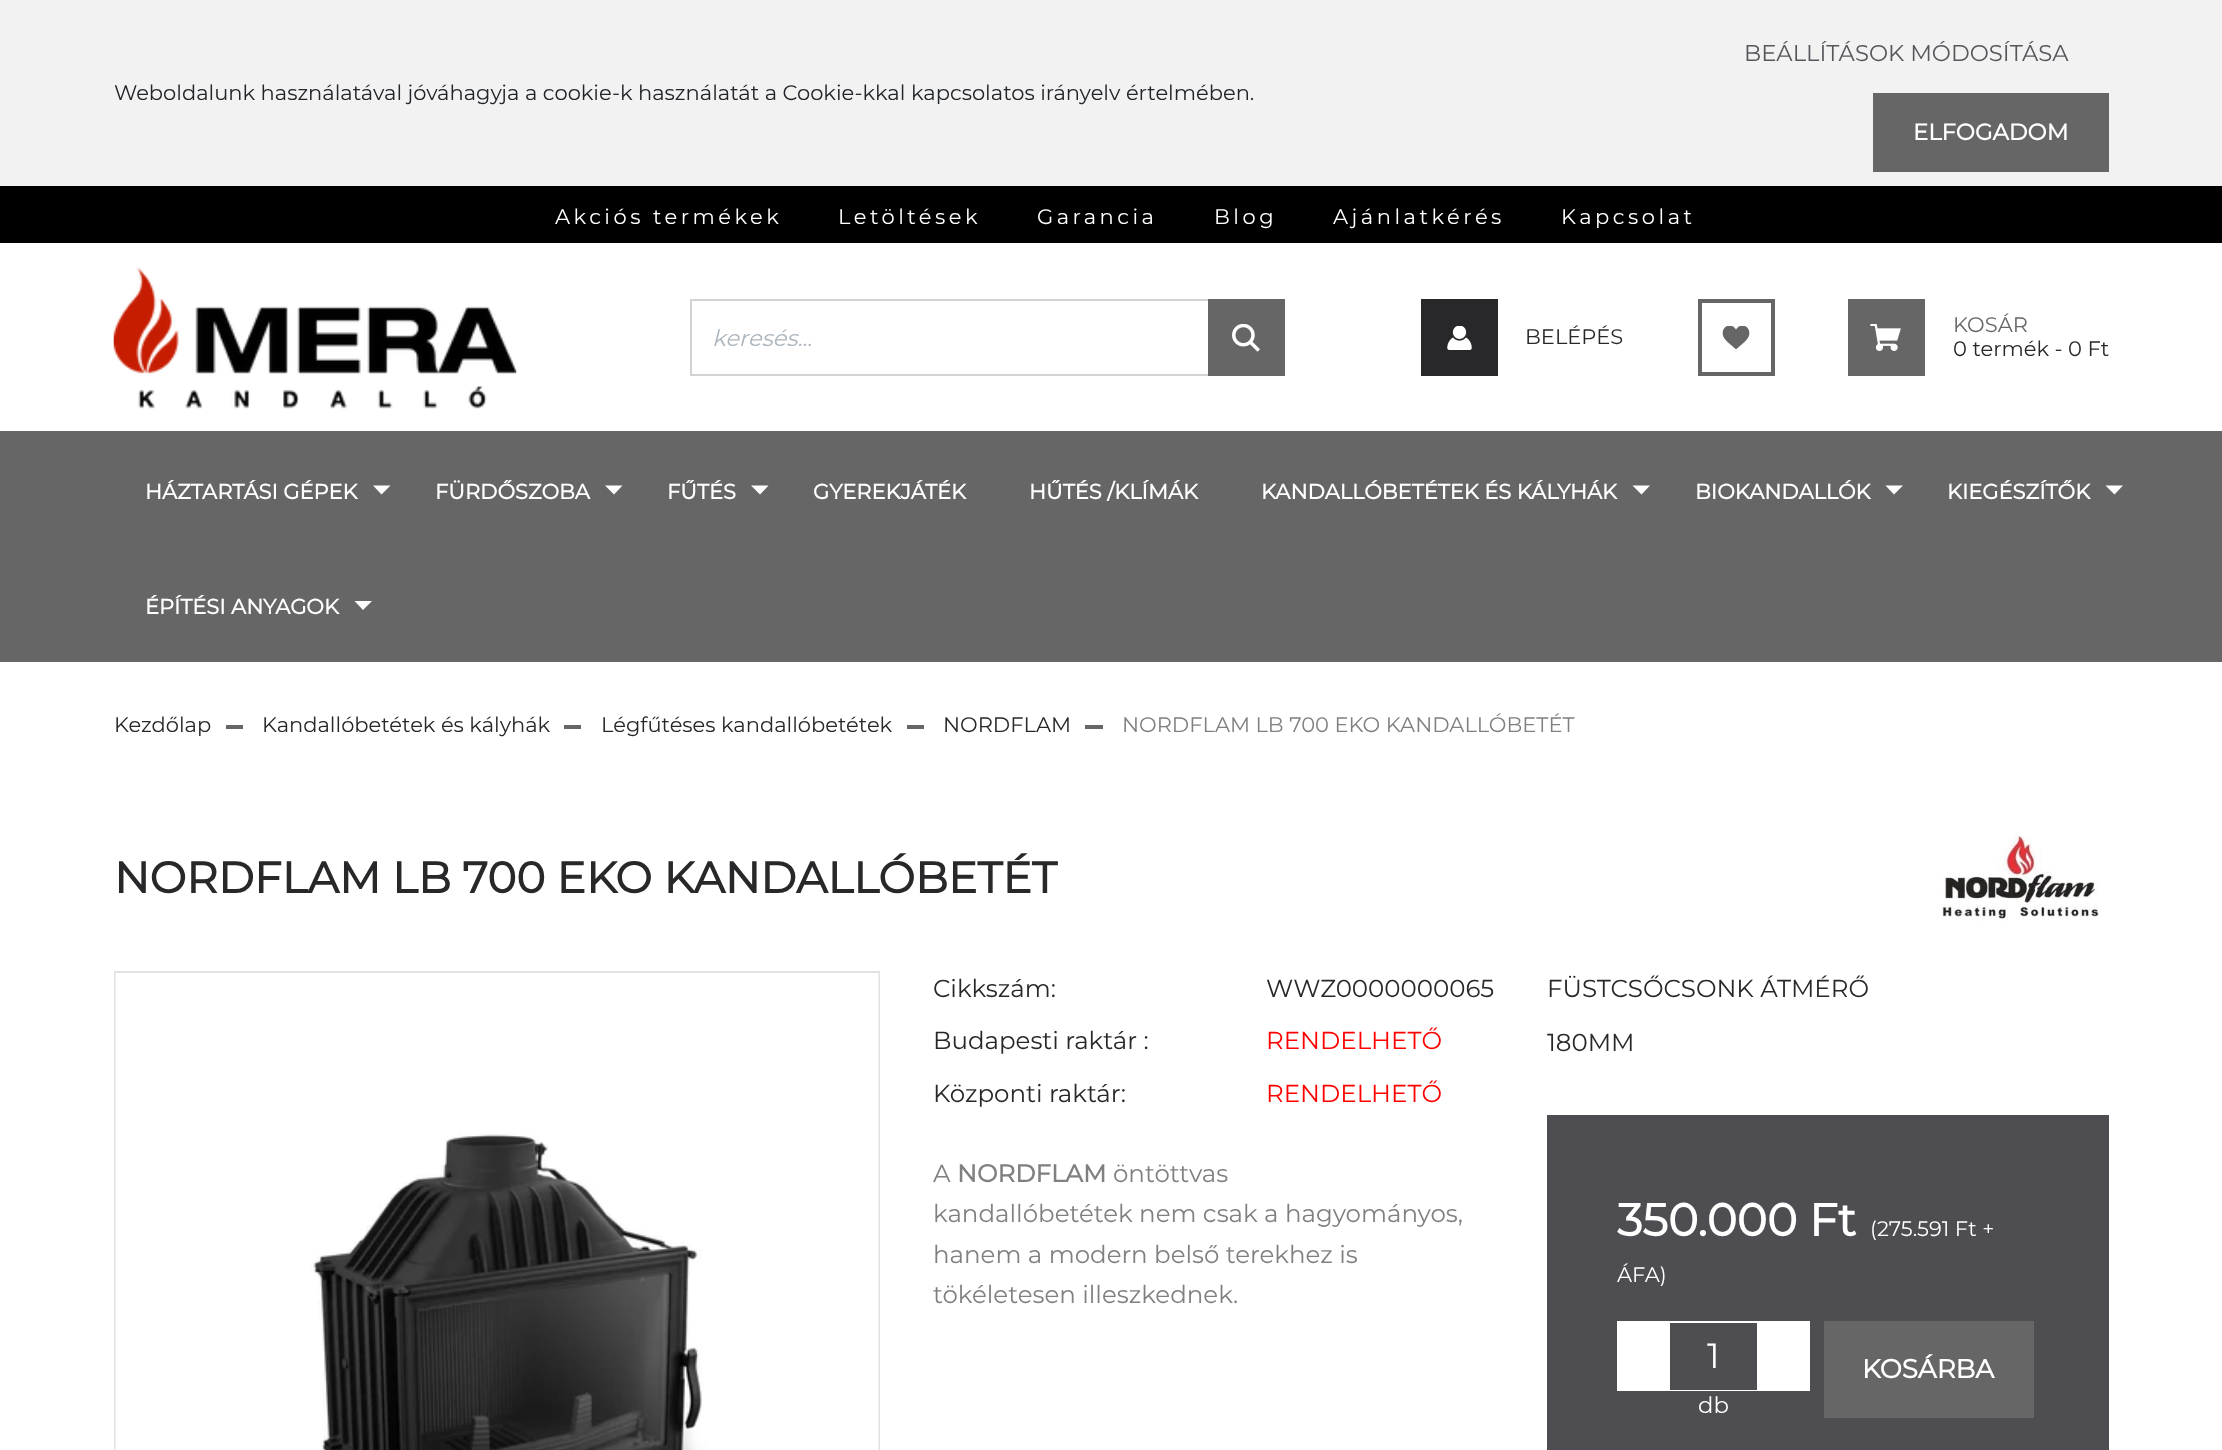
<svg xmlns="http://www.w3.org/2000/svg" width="2222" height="1450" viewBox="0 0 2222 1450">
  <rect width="100%" height="100%" fill="#ffffff"/>
  <rect x="0" y="0" width="2222" height="186" fill="#f2f2f2"/>
  <text x="114" y="100" font-family="Montserrat" font-size="21" font-weight="100" fill="#212529">Weboldalunk használatával jóváhagyja a cookie-k használatát a Cookie-kkal kapcsolatos irányelv értelmében.</text>
  <text x="1744" y="61" font-family="Montserrat" font-size="22.75" font-weight="100" fill="#56565c">BEÁLLÍTÁSOK MÓDOSÍTÁSA</text>
  <rect x="1873" y="93" width="236" height="79" fill="#666666"/>
  <text x="1913" y="140" font-family="Montserrat" font-size="22.75" font-weight="bold" fill="#ffffff">ELFOGADOM</text>
  <rect x="0" y="186" width="2222" height="57" fill="#000000"/>
  <text x="555" y="224" font-family="Montserrat" font-size="21" font-weight="100" letter-spacing="3.5" fill="#ffffff">Akciós termékek</text>
  <text x="838" y="224" font-family="Montserrat" font-size="21" font-weight="100" letter-spacing="3.5" fill="#ffffff">Letöltések</text>
  <text x="1037" y="224" font-family="Montserrat" font-size="21" font-weight="100" letter-spacing="3.5" fill="#ffffff">Garancia</text>
  <text x="1214" y="224" font-family="Montserrat" font-size="21" font-weight="100" letter-spacing="3.5" fill="#ffffff">Blog</text>
  <text x="1333" y="224" font-family="Montserrat" font-size="21" font-weight="100" letter-spacing="3.5" fill="#ffffff">Ajánlatkérés</text>
  <text x="1561" y="224" font-family="Montserrat" font-size="21" font-weight="100" letter-spacing="3.5" fill="#ffffff">Kapcsolat</text>
  <image x="113" y="267" width="404" height="142" href="img1.png"/>
  <rect x="691" y="300" width="593" height="75" fill="none" stroke="#d3d3d3" stroke-width="2"/>
  <text x="712" y="346" font-family="Montserrat" font-size="22.75" font-weight="100" font-style="italic" fill="#adb5bd">keresés...</text>
  <rect x="1208" y="299" width="77" height="77" fill="#666666"/>
  <image x="1232" y="324" width="28" height="28" href="img2.png"/>
  <rect x="1421" y="299" width="77" height="77" fill="#282729"/>
  <image x="1447" y="326" width="25" height="24" href="img3.png"/>
  <text x="1525" y="344" font-family="Montserrat" font-size="21" font-weight="100" fill="#282729">BELÉPÉS</text>
  <rect x="1700" y="301" width="73" height="73" fill="none" stroke="#666666" stroke-width="4"/>
  <image x="1722" y="326" width="28" height="23" href="img4.png"/>
  <rect x="1848" y="299" width="77" height="77" fill="#666666"/>
  <image x="1870" y="324" width="31" height="27" href="img5.png"/>
  <text x="1953" y="332" font-family="Montserrat" font-size="21" font-weight="100" fill="#666666">KOSÁR</text>
  <text x="1953" y="356" font-family="Montserrat" font-size="21" font-weight="100" fill="#282729">0 termék - 0 Ft</text>
  <rect x="0" y="431" width="2222" height="231" fill="#666666"/>
  <text x="145" y="499" font-family="Montserrat" font-size="21" font-weight="bold" fill="#ffffff">HÁZTARTÁSI GÉPEK</text>
  <path d="M373 485.5H390.5L381.5 494.5Z" fill="#ffffff"/>
  <text x="435" y="499" font-family="Montserrat" font-size="21" font-weight="bold" fill="#ffffff">FÜRDŐSZOBA</text>
  <path d="M605 485.5H622.5L614 494.5Z" fill="#ffffff"/>
  <text x="667" y="499" font-family="Montserrat" font-size="21" font-weight="bold" fill="#ffffff">FŰTÉS</text>
  <path d="M751 485.5H768.5L760 494.5Z" fill="#ffffff"/>
  <text x="813" y="499" font-family="Montserrat" font-size="21" font-weight="bold" fill="#ffffff">GYEREKJÁTÉK</text>
  <text x="1029" y="499" font-family="Montserrat" font-size="21" font-weight="bold" fill="#ffffff">HŰTÉS /KLÍMÁK</text>
  <text x="1261" y="499" font-family="Montserrat" font-size="21" font-weight="bold" fill="#ffffff">KANDALLÓBETÉTEK ÉS KÁLYHÁK</text>
  <path d="M1632.5 485.5H1650L1641.5 494.5Z" fill="#ffffff"/>
  <text x="1695" y="499" font-family="Montserrat" font-size="21" font-weight="bold" fill="#ffffff">BIOKANDALLÓK</text>
  <path d="M1885.5 485.5H1903L1894 494.5Z" fill="#ffffff"/>
  <text x="1947" y="499" font-family="Montserrat" font-size="21" font-weight="bold" fill="#ffffff">KIEGÉSZÍTŐK</text>
  <path d="M2105.5 485.5H2123L2114.5 494.5Z" fill="#ffffff"/>
  <text x="145" y="614" font-family="Montserrat" font-size="21" font-weight="bold" fill="#ffffff">ÉPÍTÉSI ANYAGOK</text>
  <path d="M354.5 601H372L363 610Z" fill="#ffffff"/>
  <text x="114" y="732" font-family="Montserrat" font-size="21" font-weight="100" fill="#282729">Kezdőlap</text>
  <rect x="226" y="725" width="17" height="4" fill="#666666"/>
  <text x="262" y="732" font-family="Montserrat" font-size="21" font-weight="100" fill="#282729">Kandallóbetétek és kályhák</text>
  <rect x="564" y="725" width="17" height="4" fill="#666666"/>
  <text x="601" y="732" font-family="Montserrat" font-size="21" font-weight="100" fill="#282729">Légfűtéses kandallóbetétek</text>
  <rect x="907" y="725" width="17" height="4" fill="#666666"/>
  <text x="943" y="732" font-family="Montserrat" font-size="21" font-weight="100" fill="#282729">NORDFLAM</text>
  <rect x="1085" y="725" width="18" height="4" fill="#666666"/>
  <text x="1122" y="732" font-family="Montserrat" font-size="21" font-weight="100" fill="#808080">NORDFLAM LB 700 EKO KANDALLÓBETÉT</text>
  <text x="114" y="893" font-family="Montserrat" font-size="43.75" font-weight="bold" fill="#282729">NORDFLAM LB 700 EKO KANDALLÓBETÉT</text>
  <image x="1941" y="833" width="158" height="88" href="img6.png"/>
  <rect x="115" y="972" width="764" height="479" fill="none" stroke="#e2e2e2" stroke-width="2"/>
  <image x="115" y="973" width="764" height="477" href="img7.png"/>
  <text x="933" y="997" font-family="Montserrat" font-size="24.5" font-weight="100" fill="#282729">Cikkszám:</text>
  <text x="1266" y="997" font-family="Montserrat" font-size="24.5" font-weight="100" fill="#282729">WWZ0000000065</text>
  <text x="933" y="1049" font-family="Montserrat" font-size="24.5" font-weight="100" fill="#282729">Budapesti raktár :</text>
  <text x="1266" y="1049" font-family="Montserrat" font-size="24.5" font-weight="100" fill="#ff0000">RENDELHETŐ</text>
  <text x="933" y="1102" font-family="Montserrat" font-size="24.5" font-weight="100" fill="#282729">Központi raktár:</text>
  <text x="1266" y="1102" font-family="Montserrat" font-size="24.5" font-weight="100" fill="#ff0000">RENDELHETŐ</text>
  <text x="933" y="1182" font-family="Montserrat" font-size="24.5" font-weight="100" fill="#808080">A</text>
  <text x="957" y="1182" font-family="Montserrat" font-size="24.5" font-weight="bold" fill="#808080">NORDFLAM</text>
  <text x="1113" y="1182" font-family="Montserrat" font-size="24.5" font-weight="100" fill="#808080">öntöttvas</text>
  <text x="933" y="1222" font-family="Montserrat" font-size="24.5" font-weight="100" fill="#808080">kandallóbetétek nem csak a hagyományos,</text>
  <text x="933" y="1263" font-family="Montserrat" font-size="24.5" font-weight="100" fill="#808080">hanem a modern belső terekhez is</text>
  <text x="933" y="1303" font-family="Montserrat" font-size="24.5" font-weight="100" fill="#808080">tökéletesen illeszkednek.</text>
  <text x="1547" y="997" font-family="Montserrat" font-size="24.5" font-weight="100" fill="#282729">FÜSTCSŐCSONK ÁTMÉRŐ</text>
  <text x="1547" y="1051" font-family="Montserrat" font-size="24.5" font-weight="100" fill="#282729">180MM</text>
  <rect x="1547" y="1115" width="562" height="335" fill="#4d4d52"/>
  <text x="1617" y="1236" font-family="Montserrat" font-size="45.5" font-weight="bold" fill="#ffffff">350.000 Ft</text>
  <text x="1870" y="1236" font-family="Montserrat" font-size="21" font-weight="100" fill="#ffffff">(275.591 Ft +</text>
  <text x="1617" y="1282" font-family="Montserrat" font-size="21" font-weight="100" fill="#ffffff">ÁFA)</text>
  <rect x="1617" y="1321" width="193" height="70" fill="#ffffff"/>
  <rect x="1670" y="1323" width="87" height="67" fill="#4d4d52"/>
  <text x="1707" y="1368" font-family="Montserrat" font-size="35" font-weight="100" fill="#ffffff">1</text>
  <text x="1698" y="1413" font-family="Montserrat" font-size="22.75" font-weight="100" fill="#ffffff">db</text>
  <rect x="1824" y="1321" width="210" height="97" fill="#666666"/>
  <text x="1862" y="1378" font-family="Montserrat" font-size="26.25" font-weight="bold" fill="#ffffff">KOSÁRBA</text>
</svg>
